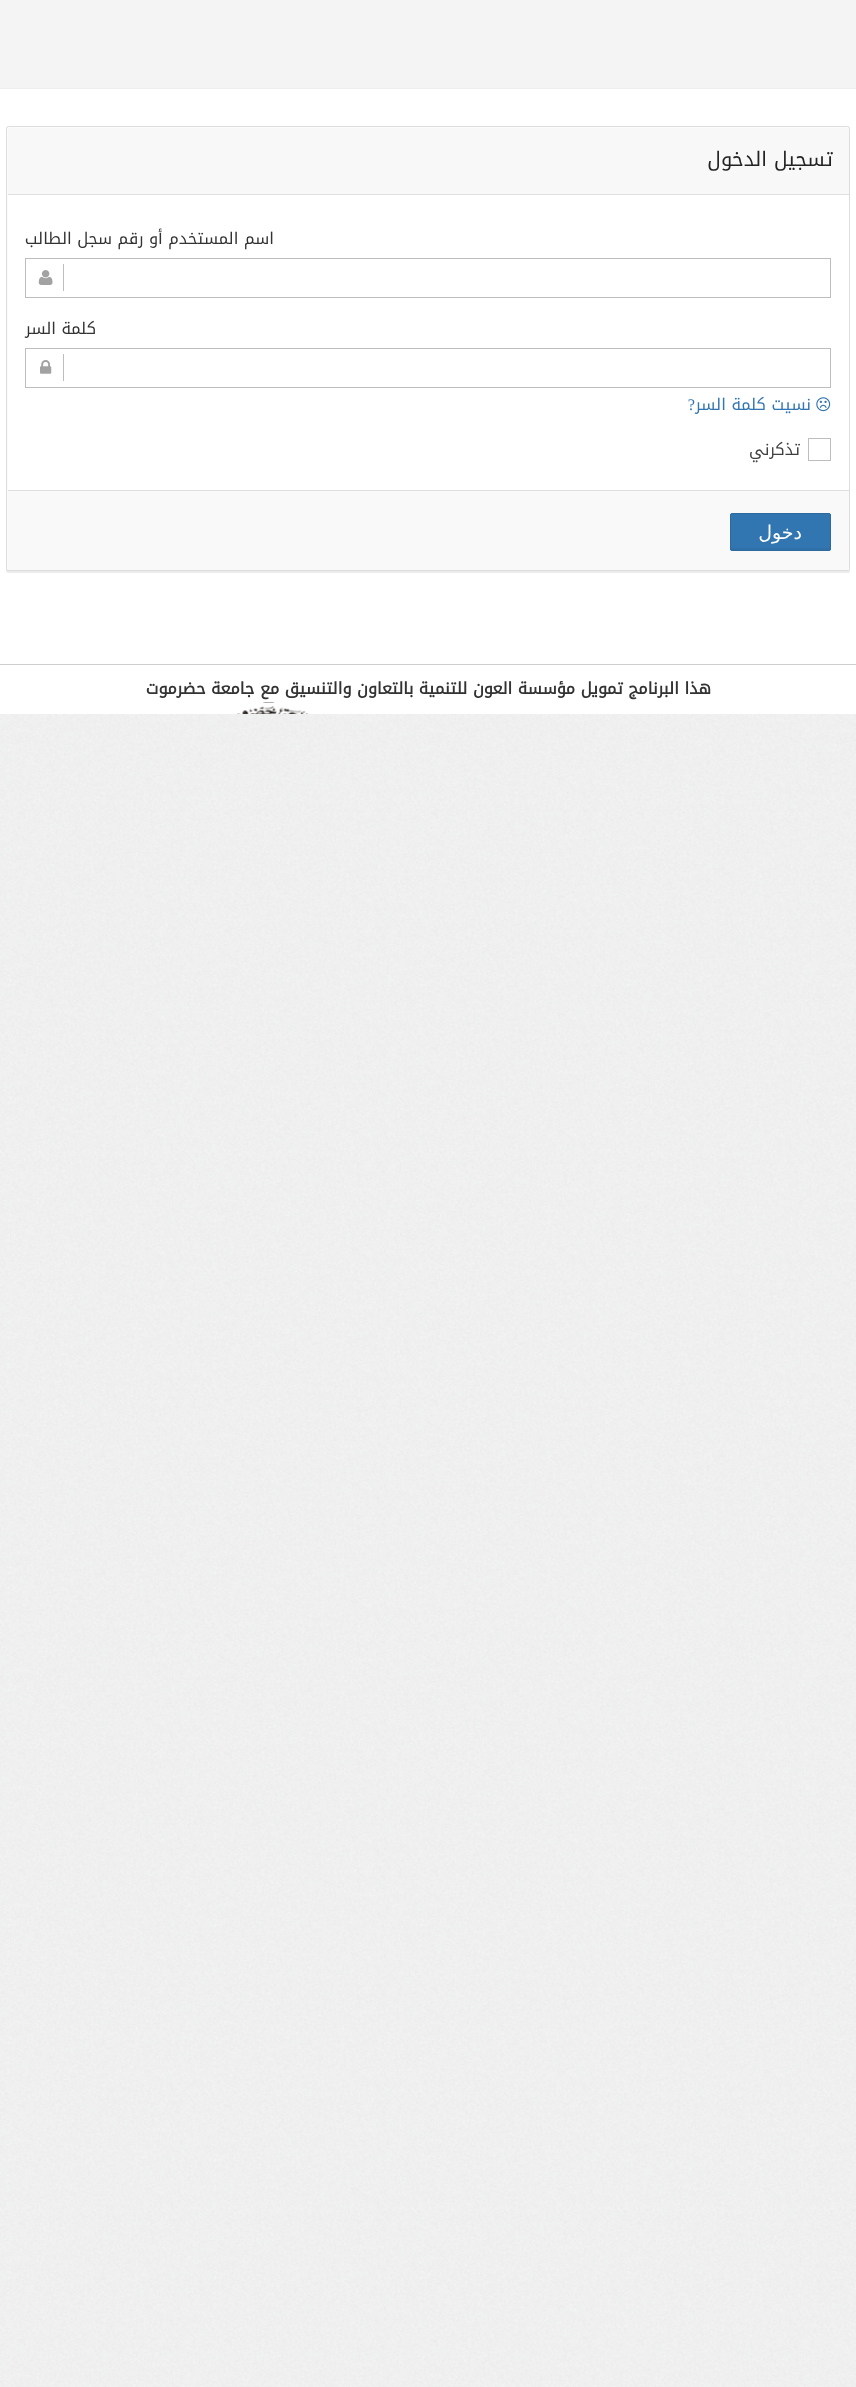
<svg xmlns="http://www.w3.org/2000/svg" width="856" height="2387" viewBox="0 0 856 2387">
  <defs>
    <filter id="blur1" x="-50%" y="-200%" width="200%" height="500%"><feGaussianBlur stdDeviation="0.5"/></filter>
  </defs>
  <rect width="100%" height="100%" fill="#ffffff"/>
  <image x="0" y="714" width="856" height="1673" href="img1.png"/>
  <rect x="0" y="0" width="856" height="88" fill="#f4f4f4"/>
  <rect x="0" y="88" width="856" height="1" fill="#eeeeee"/>
  <rect x="6" y="128" width="844" height="445" rx="2.5" fill="#ececec" filter="url(#blur1)"/>
  <rect x="6.5" y="126.5" width="843" height="444" rx="2" fill="#fbfbfb" stroke="#dddddd"/>
  <rect x="8" y="128" width="841" height="66" fill="#f8f8f8"/>
  <rect x="8" y="194" width="841" height="1" fill="#dfdfdf"/>
  <text x="833" y="166" font-family="Noto Kufi Arabic" font-size="20" direction="rtl" fill="#232323">تسجيل الدخول</text>
  <rect x="8" y="195" width="841" height="295" fill="#ffffff"/>
  <text x="274" y="244" font-family="Noto Kufi Arabic" font-size="16.25" direction="rtl" fill="#333333">اسم المستخدم أو رقم سجل الطالب</text>
  <rect x="25.5" y="258.5" width="805" height="39" fill="none" stroke="#bdbdbd"/>
  <rect x="63" y="264" width="1" height="27" fill="#bdbdbd"/>
  <image x="38" y="270" width="15" height="15" href="img2.png"/>
  <text x="96" y="334" font-family="Noto Kufi Arabic" font-size="16.25" direction="rtl" fill="#333333">كلمة السر</text>
  <rect x="25.5" y="348.5" width="805" height="39" fill="none" stroke="#bdbdbd"/>
  <rect x="63" y="354" width="1" height="27" fill="#bdbdbd"/>
  <image x="40" y="360" width="12" height="14" href="img3.png"/>
  <image x="816" y="397" width="15" height="15" href="img4.png"/>
  <text x="695" y="410" font-family="Liberation Serif" font-size="16.25" direction="rtl" fill="#3276b1">?</text>
  <text x="811" y="410" font-family="Noto Kufi Arabic" font-size="16.25" direction="rtl" fill="#3276b1">نسيت كلمة السر</text>
  <rect x="808.5" y="438.5" width="22" height="22" fill="none" stroke="#bdbdbd"/>
  <text x="800" y="455" font-family="Noto Kufi Arabic" font-size="16.25" direction="rtl" fill="#404040">تذكرني</text>
  <rect x="8" y="491" width="841" height="79" fill="#f8f8f8" fill-opacity="0.9"/>
  <rect x="8" y="490" width="841" height="1" fill="#dfdfdf"/>
  <rect x="730" y="513" width="101" height="38" rx="2.5" fill="#3276b1"/>
  <path d="M731 546V549C731 550 731 550 732 550H829C830 550 830 550 830 549V546L829 548H732Z" fill="#3070a8"/>
  <rect x="730.5" y="513.5" width="100" height="37" rx="2" fill="none" stroke="#2c699d"/>
  <text x="802" y="539" font-family="DejaVu Sans" font-size="19" direction="rtl" fill="#ffffff">دخول</text>
  <rect x="0" y="664" width="856" height="1" fill="#cecece"/>
  <text x="711" y="694" font-family="Noto Kufi Arabic" font-size="16.25" font-weight="bold" direction="rtl" fill="#333333">هذا البرنامج تمويل مؤسسة العون للتنمية بالتعاون والتنسيق مع جامعة حضرموت</text>
  <image x="237" y="702" width="72" height="12" href="img5.png"/>
</svg>
